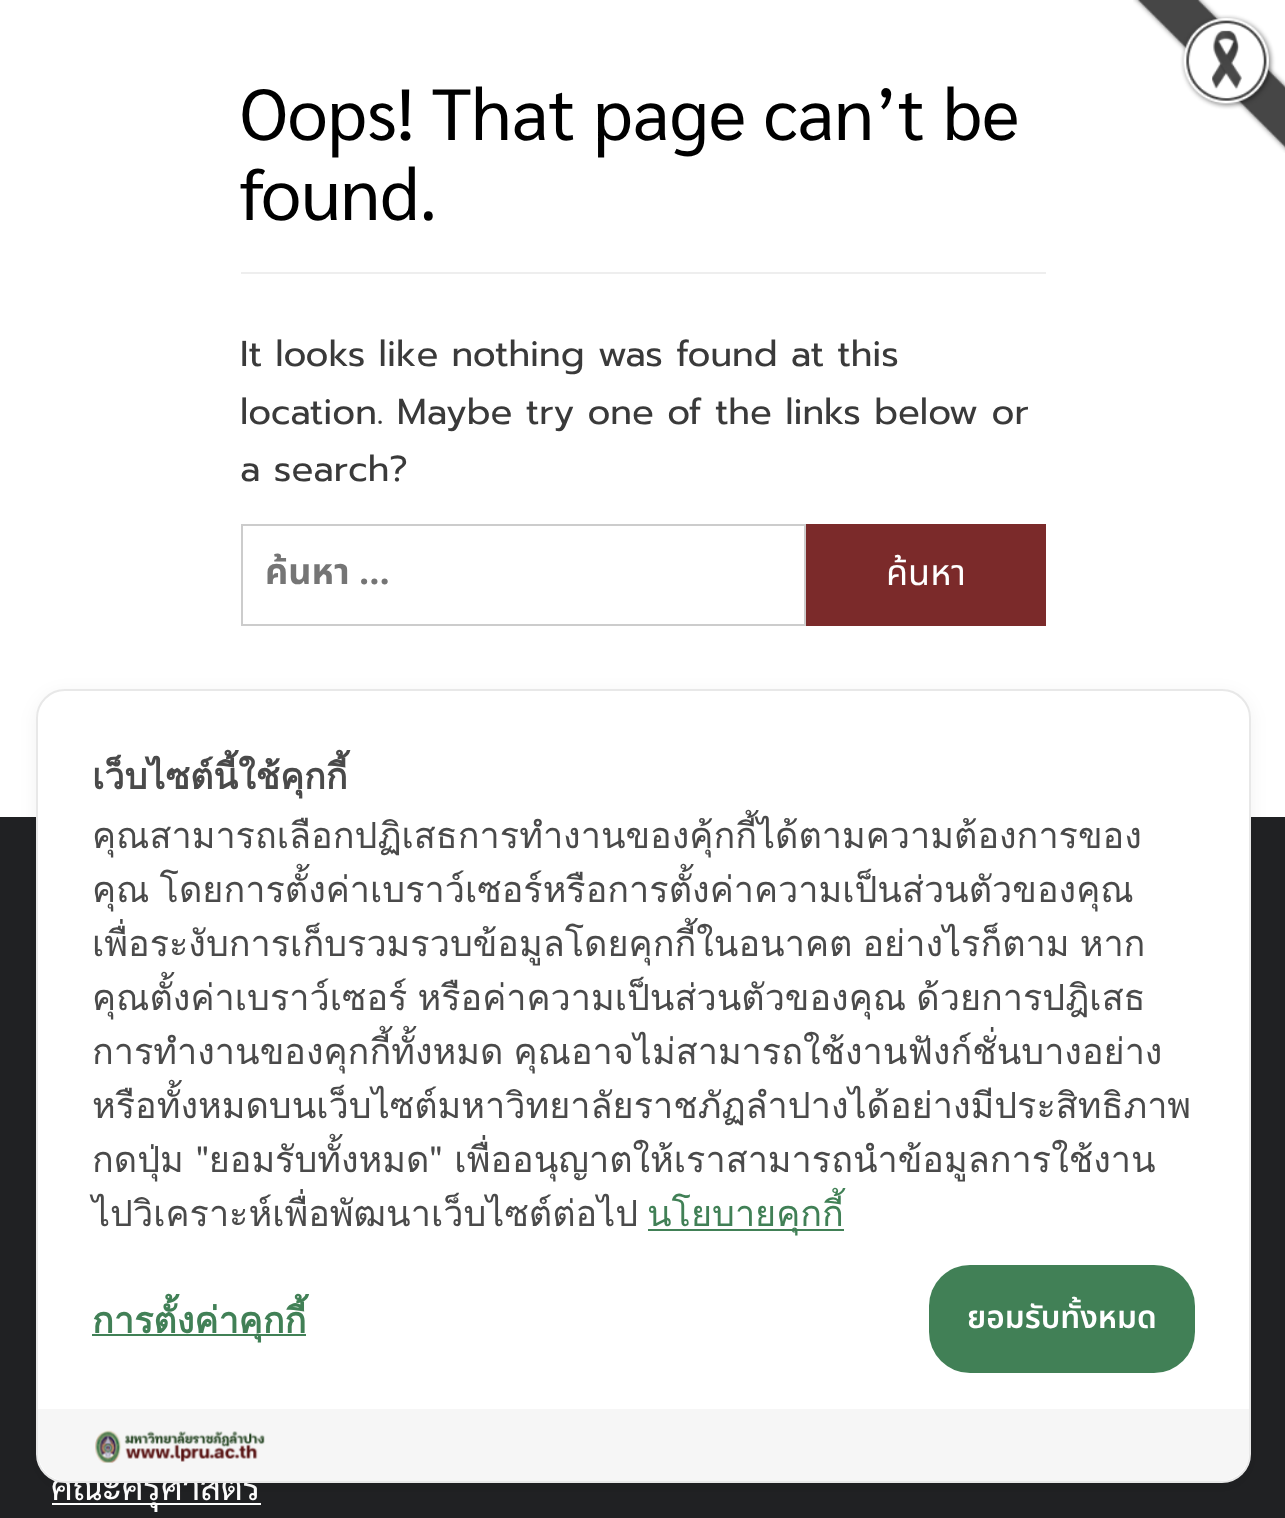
<svg xmlns="http://www.w3.org/2000/svg" width="1285" height="1518" viewBox="0 0 1285 1518">
  <defs>
    <clipPath id="clip1"><rect x="266" y="547" width="506" height="54"/></clipPath>
    <filter id="blur1" x="-50%" y="-200%" width="200%" height="500%"><feGaussianBlur stdDeviation="9"/></filter>
  </defs>
  <rect width="100%" height="100%" fill="#ffffff"/>
  <rect x="241" y="272" width="805" height="2" fill="#eeeeee"/>
  <text x="240" y="140" font-family="Sarabun" font-size="72" fill="#000000">Oops! That page can’t be</text>
  <text x="240" y="220" font-family="Sarabun" font-size="72" fill="#000000">found.</text>
  <text x="240" y="366" font-family="Prompt" font-size="36" fill="#3a3a3a">It looks like nothing was found at this</text>
  <text x="240" y="424" font-family="Prompt" font-size="36" fill="#3a3a3a">location. Maybe try one of the links below or</text>
  <text x="240" y="481" font-family="Prompt" font-size="36" fill="#3a3a3a">a search?</text>
  <rect x="242" y="525" width="563" height="100" fill="none" stroke="#cccccc" stroke-width="2"/>
  <g clip-path="url(#clip1)">
    <text x="265" y="584" font-family="Noto Sans Thai" font-size="36" font-weight="bold" fill="#757575">ค้นหา …</text>
  </g>
  <rect x="806" y="524" width="240" height="102" fill="#7b2a2a"/>
  <text x="886" y="585" font-family="Noto Sans Thai" font-size="36" fill="#ffffff">ค้นหา</text>
  <rect x="0" y="817" width="1285" height="701" fill="#202123"/>
  <rect x="52" y="1503" width="209" height="2" fill="#ffffff"/>
  <text x="51" y="1500" font-family="Sarabun" font-size="36" fill="#ffffff">คณะครุศาสตร์</text>
  <image x="1133" y="0" width="152" height="153" href="img1.png"/>
  <rect x="36" y="693" width="1215" height="794" rx="29" fill="#000000" fill-opacity="0.05" filter="url(#blur1)"/>
  <rect x="37" y="690" width="1213" height="792" rx="28" fill="#ffffff" stroke="#e8e8e8" stroke-width="2"/>
  <text x="92" y="789" font-family="Loma" font-size="36" font-weight="bold" fill="#4a4a4a">เว็บไซต์นี้ใช้คุกกี้</text>
  <text x="92" y="848" font-family="Loma" font-size="36" fill="#4a4a4a">คุณสามารถเลือกปฏิเสธการทำงานของคุ้กกี้ได้ตามความต้องการของ</text>
  <text x="92" y="902" word-spacing="-2" font-family="Loma" font-size="36" fill="#4a4a4a">คุณ โดยการตั้งค่าเบราว์เซอร์หรือการตั้งค่าความเป็นส่วนตัวของคุณ</text>
  <text x="92" y="956" word-spacing="-2" font-family="Loma" font-size="36" fill="#4a4a4a">เพื่อระงับการเก็บรวมรวบข้อมูลโดยคุกกี้ในอนาคต อย่างไรก็ตาม หาก</text>
  <text x="92" y="1010" word-spacing="-2" font-family="Loma" font-size="36" fill="#4a4a4a">คุณตั้งค่าเบราว์เซอร์ หรือค่าความเป็นส่วนตัวของคุณ ด้วยการปฎิเสธ</text>
  <text x="92" y="1064" word-spacing="-2" font-family="Loma" font-size="36" fill="#4a4a4a">การทำงานของคุกกี้ทั้งหมด คุณอาจไม่สามารถใช้งานฟังก์ชั่นบางอย่าง</text>
  <text x="92" y="1118" font-family="Loma" font-size="36" fill="#4a4a4a">หรือทั้งหมดบนเว็บไซต์มหาวิทยาลัยราชภัฏลำปางได้อย่างมีประสิทธิภาพ</text>
  <text x="92" y="1172" font-family="Loma" font-size="36" fill="#4a4a4a">กดปุ่ม "ยอมรับทั้งหมด" เพื่ออนุญาตให้เราสามารถนำข้อมูลการใช้งาน</text>
  <text x="92" y="1226" font-family="Loma" font-size="36" fill="#4a4a4a">ไปวิเคราะห์เพื่อพัฒนาเว็บไซต์ต่อไป</text>
  <rect x="648" y="1229" width="196" height="2" fill="#418056"/>
  <text x="647" y="1226" font-family="Loma" font-size="36" fill="#418056">นโยบายคุกกี้</text>
  <rect x="92" y="1334" width="214" height="2" fill="#418056"/>
  <text x="92" y="1333" font-family="Loma" font-size="36" font-weight="bold" fill="#418056">การตั้งค่าคุกกี้</text>
  <rect x="929" y="1265" width="266" height="108" rx="41" fill="#418056"/>
  <text x="967" y="1328" font-family="Noto Sans Thai" font-size="31.5" font-weight="600" fill="#ffffff">ยอมรับทั้งหมด</text>
  <path d="M38 1409H1249V1452C1249 1468 1236 1481 1220 1481H67C51 1481 38 1468 38 1452Z" fill="#f6f6f6"/>
  <image x="95" y="1430" width="170" height="33" href="img2.png"/>
</svg>
